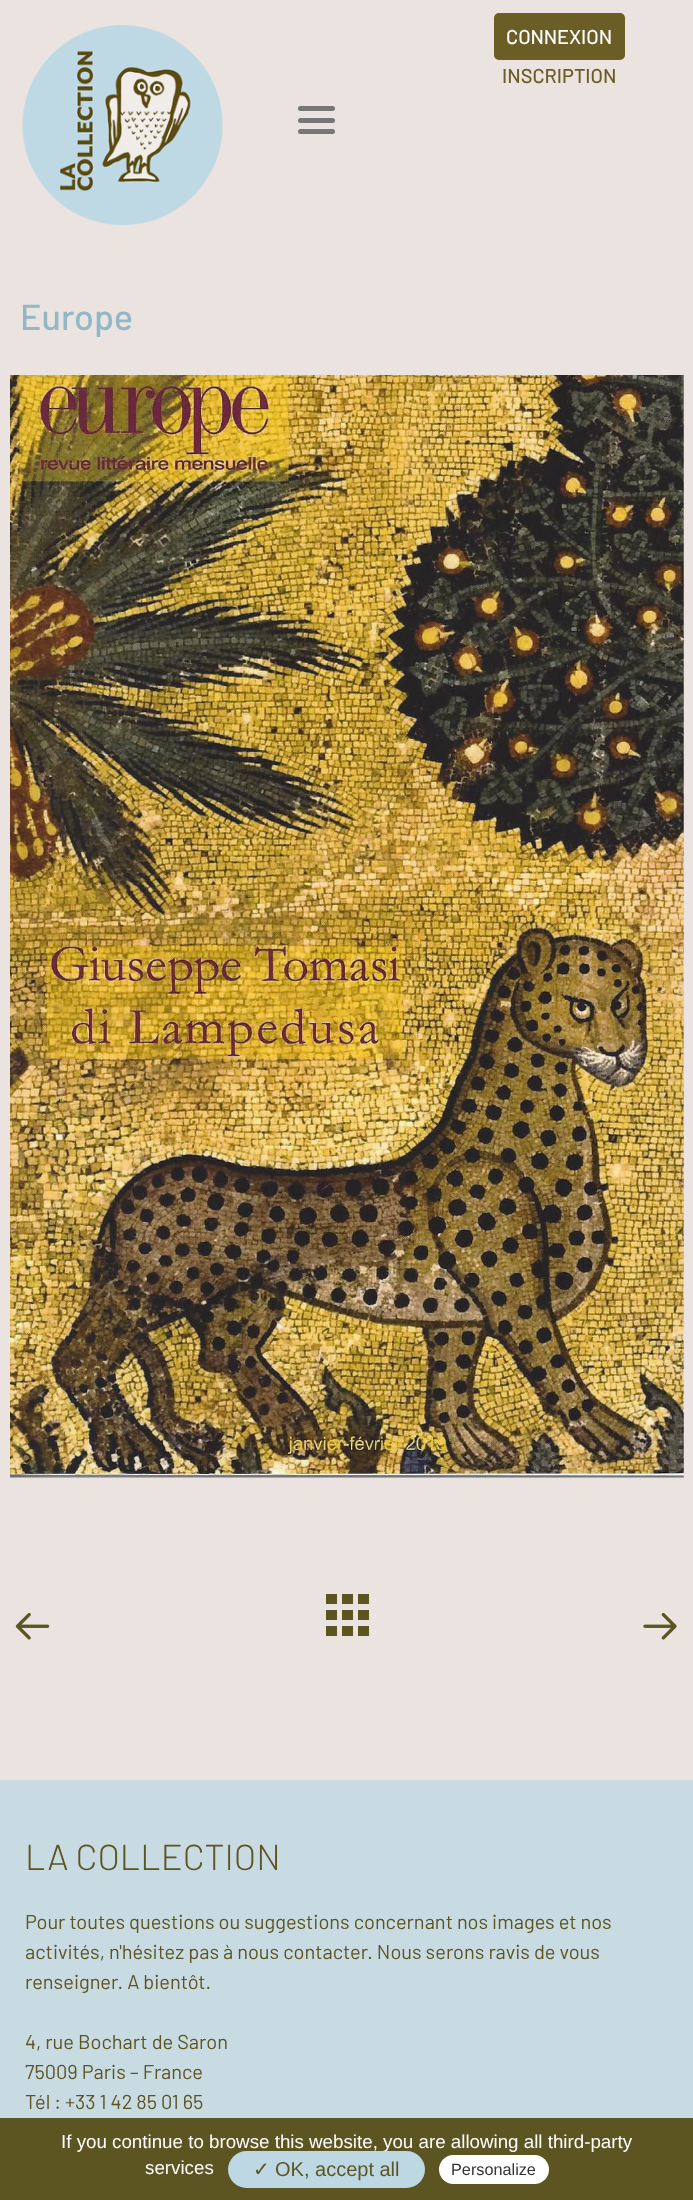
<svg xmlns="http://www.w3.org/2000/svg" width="693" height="2200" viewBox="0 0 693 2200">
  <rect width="100%" height="100%" fill="#ebe3e0"/>
  <image x="22" y="25" width="201" height="200" href="img1.png"/>
  <rect x="494" y="13" width="131" height="47" rx="5" fill="#6b5d26"/>
  <text x="506" y="44" font-family="Barlow" font-size="20" font-weight="500" fill="#ffffff">CONNEXION</text>
  <text x="502" y="83" font-family="Barlow" font-size="20" font-weight="500" fill="#6b5d26">INSCRIPTION</text>
  <rect x="298" y="106" width="37" height="5" rx="2.5" fill="#777777"/>
  <rect x="298" y="118" width="37" height="5" rx="2.5" fill="#777777"/>
  <rect x="298" y="129" width="37" height="5" rx="2.5" fill="#777777"/>
  <text x="20" y="330" font-family="Barlow" font-size="36" font-weight="500" fill="#92b7c6">Europe</text>
  <image x="10" y="375" width="674" height="1103" href="img2.png"/>
  <image x="15" y="1612" width="35" height="28" href="img3.png"/>
  <rect x="342" y="1610" width="11" height="10" fill="#5c5421"/>
  <rect x="326" y="1594" width="11" height="10" fill="#5c5421"/>
  <rect x="342" y="1626" width="11" height="10" fill="#5c5421"/>
  <rect x="326" y="1610" width="11" height="10" fill="#5c5421"/>
  <rect x="326" y="1626" width="11" height="10" fill="#5c5421"/>
  <rect x="358" y="1594" width="11" height="10" fill="#5c5421"/>
  <rect x="342" y="1594" width="11" height="10" fill="#5c5421"/>
  <rect x="358" y="1610" width="11" height="10" fill="#5c5421"/>
  <rect x="358" y="1626" width="11" height="10" fill="#5c5421"/>
  <image x="643" y="1612" width="34" height="28" href="img4.png"/>
  <rect x="0" y="1780" width="693" height="338" fill="#c8dbe3"/>
  <text x="25" y="1870" font-family="Barlow" font-size="36" font-weight="300" fill="#5c5421">LA COLLECTION</text>
  <text x="25" y="1929" font-family="Barlow" font-size="20" fill="#5c5421">Pour toutes questions ou suggestions concernant nos images et nos</text>
  <text x="25" y="1959" font-family="Barlow" font-size="20" fill="#5c5421">activités, n'hésitez pas à nous contacter. Nous serons ravis de vous</text>
  <text x="25" y="1989" font-family="Barlow" font-size="20" fill="#5c5421">renseigner. A bientôt.</text>
  <text x="25" y="2049" font-family="Barlow" font-size="20" fill="#5c5421">4, rue Bochart de Saron</text>
  <text x="25" y="2079" font-family="Barlow" font-size="20" fill="#5c5421">75009 Paris – France</text>
  <text x="25" y="2109" font-family="Barlow" font-size="20" fill="#5c5421">Tél : +33 1 42 85 01 65</text>
  <rect x="0" y="2118" width="693" height="82" fill="#5c5421"/>
  <text x="61" y="2148" font-family="Liberation Sans" font-size="18.75" fill="#ffffff">If you continue to browse this website, you are allowing all third-party</text>
  <text x="145" y="2174" font-family="Liberation Sans" font-size="18.75" fill="#ffffff">services</text>
  <rect x="228" y="2151" width="197" height="37" rx="18.5" fill="#bdd8e3"/>
  <text x="253" y="2176" font-family="DejaVu Sans" font-size="20" fill="#5c5421">✓</text>
  <text x="275" y="2176" font-family="Liberation Sans" font-size="20" fill="#5c5421">OK, accept all</text>
  <rect x="439" y="2155" width="110" height="29" rx="14.5" fill="#ffffff"/>
  <text x="451" y="2175" font-family="Liberation Sans" font-size="16.25" fill="#333333">Personalize</text>
</svg>
